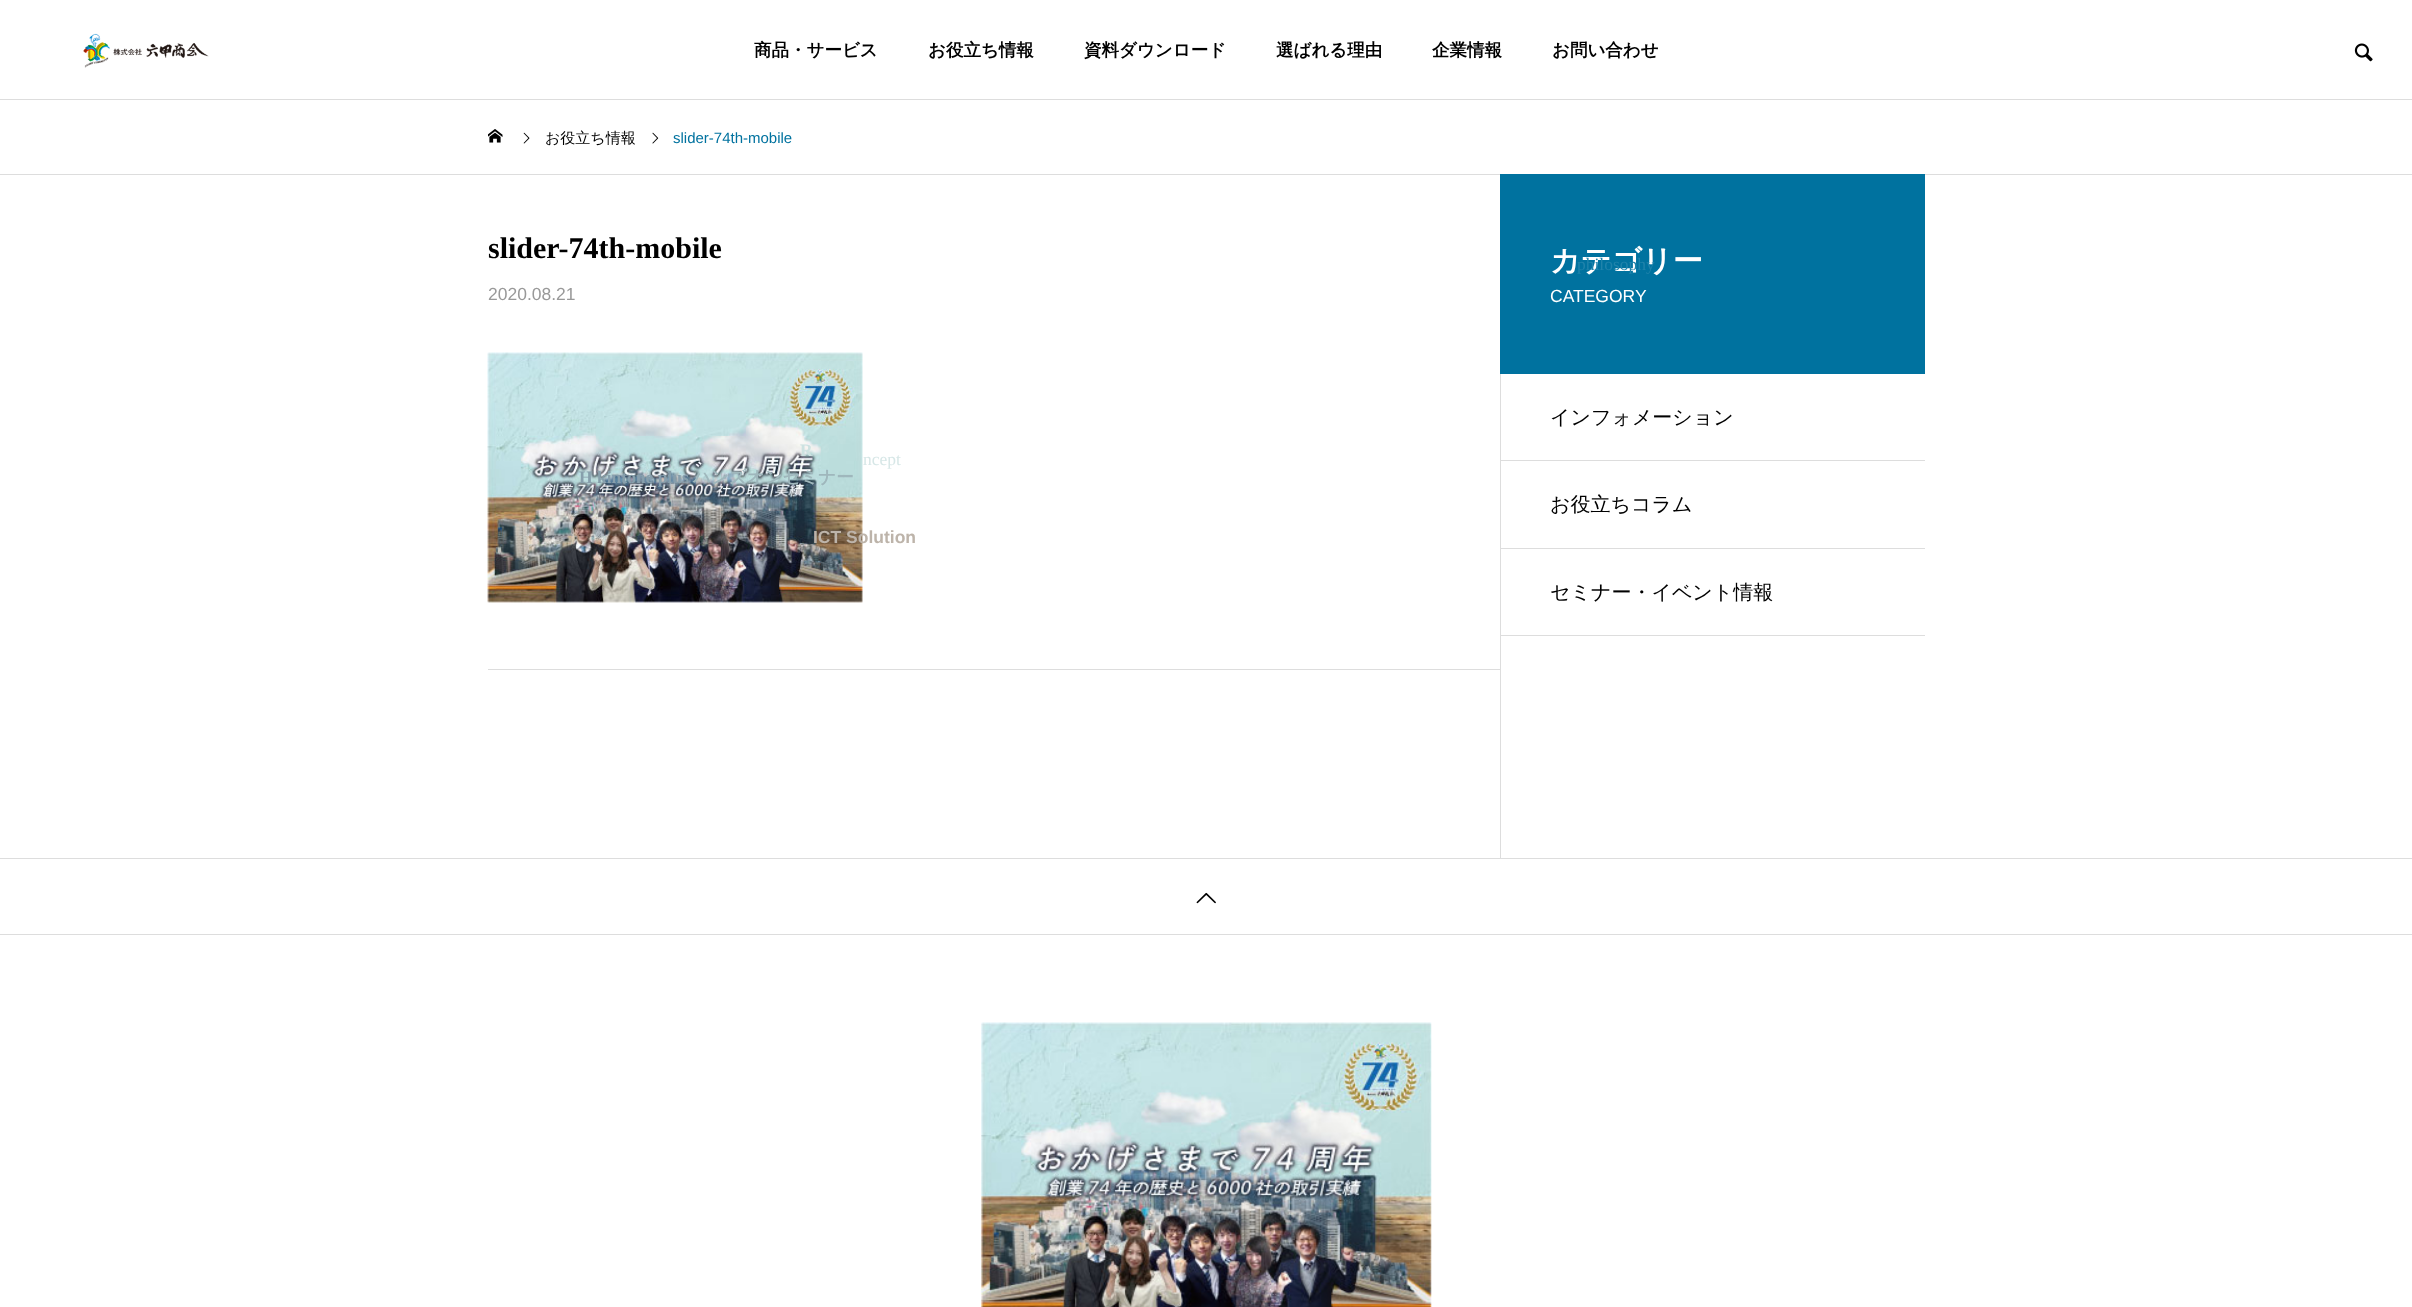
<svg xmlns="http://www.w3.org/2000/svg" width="2412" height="1307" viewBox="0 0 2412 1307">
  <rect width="100%" height="100%" fill="#ffffff"/>
  <image x="83" y="33" width="126" height="35" href="img1.png"/>
  <text x="754" y="56" font-family="WenQuanYi Zen Hei" font-size="17.5" font-weight="bold" fill="#000000">商品・サービス</text>
  <text x="928" y="56" font-family="WenQuanYi Zen Hei" font-size="17.5" font-weight="bold" fill="#000000">お役立ち情報</text>
  <text x="1084" y="56" font-family="WenQuanYi Zen Hei" font-size="17.5" font-weight="bold" fill="#000000">資料ダウンロード</text>
  <text x="1276" y="56" font-family="WenQuanYi Zen Hei" font-size="17.5" font-weight="bold" fill="#000000">選ばれる理由</text>
  <text x="1432" y="56" font-family="WenQuanYi Zen Hei" font-size="17.5" font-weight="bold" fill="#000000">企業情報</text>
  <text x="1552" y="56" font-family="WenQuanYi Zen Hei" font-size="17.5" font-weight="bold" fill="#000000">お問い合わせ</text>
  <image x="2354" y="43" width="19" height="19" href="img2.png"/>
  <rect x="0" y="99" width="2412" height="1" fill="#dddddd"/>
  <image x="487" y="352" width="376" height="251" href="img6.png"/>
  <text x="800" y="456" font-family="Liberation Serif" font-size="17.5" font-weight="bold" fill="#cde2e1">R</text>
  <text x="579" y="483" font-family="Liberation Serif" font-size="17.5" font-weight="bold" fill="#879fac">H kintone plus</text>
  <text x="693" y="483" font-family="WenQuanYi Zen Hei" font-size="17.5" font-weight="bold" fill="#9fb7bc">ハンズオンセミナー</text>
  <rect x="0" y="174" width="2412" height="1" fill="#dddddd"/>
  <rect x="1500" y="174" width="425" height="200" fill="#00729f"/>
  <text x="1550" y="271" font-family="WenQuanYi Zen Hei" font-size="30" font-weight="bold" fill="#ffffff">カテゴリー</text>
  <text x="1577" y="270" font-family="Liberation Serif" font-size="17.5" fill="#1f83ab">philosophy</text>
  <text x="863" y="465" font-family="Liberation Serif" font-size="17.5" fill="#d7e7e7">ncept</text>
  <text x="813" y="543" font-family="Liberation Sans" font-size="17.5" font-weight="bold" fill="#bdb4aa">ICT Solution</text>
  <image x="488" y="129" width="15" height="14" href="img3.png"/>
  <image x="523" y="132" width="7" height="12" href="img4.png"/>
  <text x="545" y="143" font-family="WenQuanYi Zen Hei" font-size="15" font-weight="500" fill="#000000">お役立ち情報</text>
  <image x="652" y="132" width="7" height="12" href="img5.png"/>
  <text x="673" y="143" font-family="Liberation Sans" font-size="15" fill="#00729f">slider-74th-mobile</text>
  <text x="488" y="258" font-family="Liberation Serif" font-size="30" font-weight="bold" fill="#000000">slider-74th-mobile</text>
  <text x="488" y="300" font-family="Liberation Sans" font-size="17.5" fill="#999999">2020.08.21</text>
  <rect x="488" y="669" width="1012" height="1" fill="#dddddd"/>
  <rect x="1500" y="460" width="425" height="1" fill="#dddddd"/>
  <rect x="1500" y="548" width="425" height="1" fill="#dddddd"/>
  <rect x="1500" y="635" width="425" height="1" fill="#dddddd"/>
  <rect x="1500" y="374" width="1" height="484" fill="#dddddd"/>
  <text x="1550" y="302" font-family="Liberation Sans" font-size="17.5" fill="#ffffff">CATEGORY</text>
  <text x="1550" y="424" font-family="WenQuanYi Zen Hei" font-size="20" font-weight="500" fill="#000000">インフォメーション</text>
  <text x="1550" y="511" font-family="WenQuanYi Zen Hei" font-size="20" font-weight="500" fill="#000000">お役立ちコラム</text>
  <text x="1550" y="599" font-family="WenQuanYi Zen Hei" font-size="20" font-weight="500" fill="#000000">セミナー・イベント情報</text>
  <rect x="0" y="858" width="2412" height="1" fill="#dddddd"/>
  <image x="1196" y="892" width="20" height="12" href="img7.png"/>
  <rect x="0" y="934" width="2412" height="1" fill="#dddddd"/>
  <image x="981" y="1022" width="451" height="285" href="img8.png"/>
</svg>
